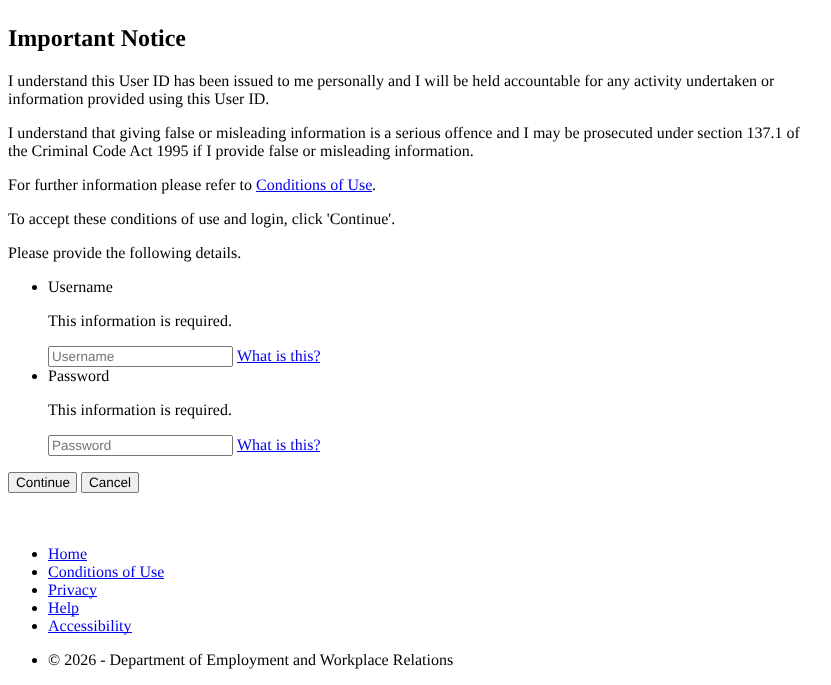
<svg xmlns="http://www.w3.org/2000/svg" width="831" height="685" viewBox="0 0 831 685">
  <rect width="100%" height="100%" fill="#ffffff"/>
  <text x="8" y="46" font-family="Liberation Serif" font-size="24" font-weight="bold" fill="#000000">Important Notice</text>
  <text x="8" y="86" font-family="Liberation Serif" font-size="16" fill="#000000">I understand this User ID has been issued to me personally and I will be held accountable for any activity undertaken or</text>
  <text x="8" y="104" font-family="Liberation Serif" font-size="16" fill="#000000">information provided using this User ID.</text>
  <text x="8" y="138" font-family="Liberation Serif" font-size="16" fill="#000000">I understand that giving false or misleading information is a serious offence and I may be prosecuted under section 137.1 of</text>
  <text x="8" y="156" font-family="Liberation Serif" font-size="16" fill="#000000">the Criminal Code Act 1995 if I provide false or misleading information.</text>
  <text x="8" y="190" font-family="Liberation Serif" font-size="16" fill="#000000">For further information please refer to</text>
  <text x="256" y="190" font-family="Liberation Serif" font-size="16" fill="#0000ee">Conditions of Use</text>
  <rect x="256" y="191" width="116" height="1" fill="#0000ee"/>
  <text x="372" y="190" font-family="Liberation Serif" font-size="16" fill="#000000">.</text>
  <text x="8" y="224" font-family="Liberation Serif" font-size="16" fill="#000000">To accept these conditions of use and login, click 'Continue'.</text>
  <text x="8" y="258" font-family="Liberation Serif" font-size="16" fill="#000000">Please provide the following details.</text>
  <circle cx="34.5" cy="287.5" r="2.5" fill="#000000"/>
  <text x="48" y="292" font-family="Liberation Serif" font-size="16" fill="#000000">Username</text>
  <text x="48" y="326" font-family="Liberation Serif" font-size="16" fill="#000000">This information is required.</text>
  <rect x="48.5" y="346.5" width="184" height="20" rx="1.5" fill="none" stroke="#767676"/>
  <text x="52" y="361" font-family="Liberation Sans" font-size="13.5" fill="#757575">Username</text>
  <text x="237" y="361" font-family="Liberation Serif" font-size="16" fill="#0000ee">What is this?</text>
  <rect x="237" y="362" width="83" height="1" fill="#0000ee"/>
  <circle cx="34.5" cy="376.5" r="2.5" fill="#000000"/>
  <text x="48" y="381" font-family="Liberation Serif" font-size="16" fill="#000000">Password</text>
  <text x="48" y="415" font-family="Liberation Serif" font-size="16" fill="#000000">This information is required.</text>
  <rect x="48.5" y="435.5" width="184" height="20" rx="1.5" fill="none" stroke="#767676"/>
  <text x="52" y="450" font-family="Liberation Sans" font-size="13.5" fill="#757575">Password</text>
  <text x="237" y="450" font-family="Liberation Serif" font-size="16" fill="#0000ee">What is this?</text>
  <rect x="237" y="451" width="83" height="1" fill="#0000ee"/>
  <rect x="8.5" y="472.5" width="68" height="20" rx="1.5" fill="#efefef" stroke="#767676"/>
  <text x="16" y="487" font-family="Liberation Sans" font-size="13.5" fill="#000000">Continue</text>
  <rect x="81.5" y="472.5" width="57" height="20" rx="1.5" fill="#efefef" stroke="#767676"/>
  <text x="89" y="487" font-family="Liberation Sans" font-size="13.5" fill="#000000">Cancel</text>
  <circle cx="34.5" cy="554.5" r="2.5" fill="#000000"/>
  <text x="48" y="559" font-family="Liberation Serif" font-size="16" fill="#0000ee">Home</text>
  <rect x="48" y="560" width="39" height="1" fill="#0000ee"/>
  <circle cx="34.5" cy="572.5" r="2.5" fill="#000000"/>
  <text x="48" y="577" font-family="Liberation Serif" font-size="16" fill="#0000ee">Conditions of Use</text>
  <rect x="48" y="578" width="116" height="1" fill="#0000ee"/>
  <circle cx="34.5" cy="590.5" r="2.5" fill="#000000"/>
  <rect x="48" y="596" width="49" height="1" fill="#0000ee"/>
  <text x="48" y="595" font-family="Liberation Serif" font-size="16" fill="#0000ee">Privacy</text>
  <circle cx="34.5" cy="608.5" r="2.5" fill="#000000"/>
  <rect x="48" y="614" width="31" height="1" fill="#0000ee"/>
  <text x="48" y="613" font-family="Liberation Serif" font-size="16" fill="#0000ee">Help</text>
  <circle cx="34.5" cy="626.5" r="2.5" fill="#000000"/>
  <rect x="48" y="632" width="84" height="1" fill="#0000ee"/>
  <text x="48" y="631" font-family="Liberation Serif" font-size="16" fill="#0000ee">Accessibility</text>
  <circle cx="34.5" cy="660.5" r="2.5" fill="#000000"/>
  <text x="48" y="665" font-family="Liberation Serif" font-size="16" fill="#000000">© 2026 - Department of Employment and Workplace Relations</text>
</svg>
